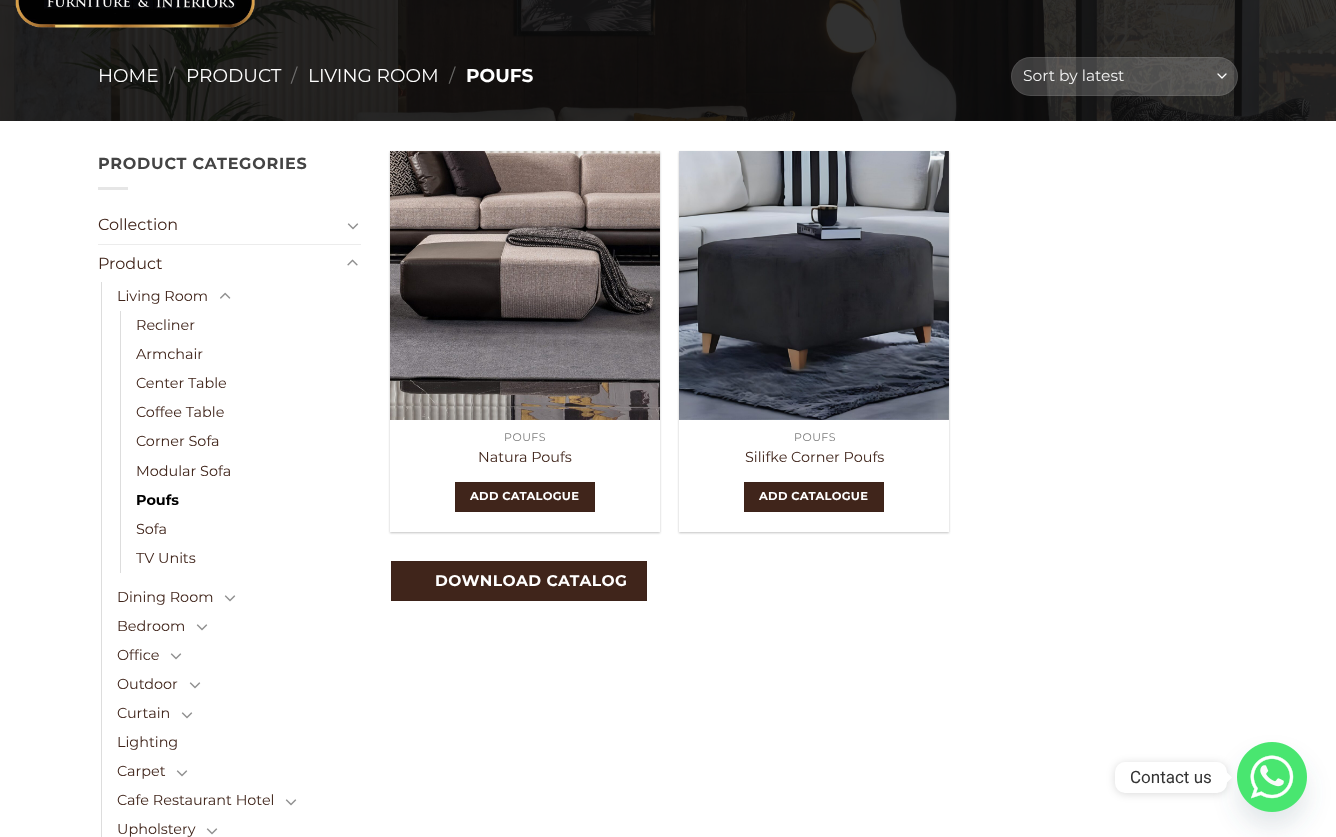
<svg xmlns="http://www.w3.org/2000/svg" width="1336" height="837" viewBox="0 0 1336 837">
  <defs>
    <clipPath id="clip1"><path d="M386 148H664V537H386ZM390 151H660V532H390Z" clip-rule="evenodd"/></clipPath>
    <filter id="blur1" x="-50%" y="-200%" width="200%" height="500%"><feGaussianBlur stdDeviation="1"/></filter>
    <clipPath id="clip2"><path d="M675 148H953V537H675ZM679 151H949V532H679Z" clip-rule="evenodd"/></clipPath>
    <filter id="blur2" x="-50%" y="-200%" width="200%" height="500%"><feGaussianBlur stdDeviation="12"/></filter>
    <filter id="blur3" x="-50%" y="-200%" width="200%" height="500%"><feGaussianBlur stdDeviation="4"/></filter>
  </defs>
  <rect width="100%" height="100%" fill="#ffffff"/>
  <image x="0" y="0" width="1336" height="121" href="img2.png"/>
  <image x="15" y="0" width="240" height="28" href="img1.png"/>
  <text x="98" y="82" font-family="Montserrat" font-size="18.5" fill="#ffffff">HOME</text>
  <text x="169" y="82" font-family="Montserrat" font-size="18.5" fill="#696967">/</text>
  <text x="186" y="82" font-family="Montserrat" font-size="18.5" fill="#ffffff">PRODUCT</text>
  <text x="291" y="82" font-family="Montserrat" font-size="18.5" fill="#706f6e">/</text>
  <text x="308" y="82" font-family="Montserrat" font-size="18.5" fill="#ffffff">LIVING ROOM</text>
  <text x="449" y="82" font-family="Montserrat" font-size="18.5" fill="#696967">/</text>
  <text x="466" y="82" font-family="Montserrat" font-size="18.5" font-weight="bold" fill="#ffffff">POUFS</text>
  <rect x="1011" y="57" width="227" height="39" rx="19.5" fill="#ffffff" fill-opacity="0.2"/>
  <path d="M1218 74L1222 78L1226 74" fill="none" stroke="#ffffff" stroke-width="1.3" stroke-linecap="round" stroke-linejoin="round"/>
  <rect x="1011.5" y="57.5" width="226" height="38" rx="19" fill="none" stroke="#ffffff" stroke-opacity="0.09"/>
  <text x="1023" y="81" font-family="Montserrat" font-size="15.5" fill="#f1f1f1">Sort by latest</text>
  <text x="98" y="169" font-family="Montserrat" font-size="16" font-weight="bold" letter-spacing="0.75" fill="#444444">PRODUCT CATEGORIES</text>
  <rect x="98" y="187" width="30" height="3" fill="#e6e6e6"/>
  <text x="98" y="230" font-family="Montserrat" font-size="16" fill="#40251b">Collection</text>
  <image x="347" y="223" width="12" height="7" href="img3.png"/>
  <rect x="98" y="244" width="263" height="1" fill="#ececec"/>
  <text x="98" y="269" font-family="Montserrat" font-size="16" fill="#40251b">Product</text>
  <image x="347" y="259" width="11" height="7" href="img4.png"/>
  <rect x="101" y="282" width="1" height="555" fill="#dddddd"/>
  <text x="117" y="301" font-family="Montserrat" font-size="14.4" fill="#40251b">Living Room</text>
  <image x="220" y="292" width="11" height="7" href="img5.png"/>
  <rect x="120" y="311" width="1" height="262" fill="#dddddd"/>
  <text x="136" y="330" font-family="Montserrat" font-size="14.4" fill="#40251b">Recliner</text>
  <text x="136" y="359" font-family="Montserrat" font-size="14.4" fill="#40251b">Armchair</text>
  <text x="136" y="388" font-family="Montserrat" font-size="14.4" fill="#40251b">Center Table</text>
  <text x="136" y="417" font-family="Montserrat" font-size="14.4" fill="#40251b">Coffee Table</text>
  <text x="136" y="446" font-family="Montserrat" font-size="14.4" fill="#40251b">Corner Sofa</text>
  <text x="136" y="476" font-family="Montserrat" font-size="14.4" fill="#40251b">Modular Sofa</text>
  <text x="136" y="505" font-family="Montserrat" font-size="14.4" font-weight="bold" fill="#000000">Poufs</text>
  <text x="136" y="534" font-family="Montserrat" font-size="14.4" fill="#40251b">Sofa</text>
  <text x="136" y="563" font-family="Montserrat" font-size="14.4" fill="#40251b">TV Units</text>
  <text x="117" y="602" font-family="Montserrat" font-size="14.4" fill="#40251b">Dining Room</text>
  <image x="224" y="595" width="12" height="7" href="img3.png"/>
  <text x="117" y="631" font-family="Montserrat" font-size="14.4" fill="#40251b">Bedroom</text>
  <image x="196" y="624" width="12" height="7" href="img3.png"/>
  <text x="117" y="660" font-family="Montserrat" font-size="14.4" fill="#40251b">Office</text>
  <image x="170" y="653" width="12" height="7" href="img3.png"/>
  <text x="117" y="689" font-family="Montserrat" font-size="14.4" fill="#40251b">Outdoor</text>
  <image x="189" y="682" width="12" height="7" href="img3.png"/>
  <text x="117" y="718" font-family="Montserrat" font-size="14.4" fill="#40251b">Curtain</text>
  <image x="181" y="712" width="12" height="7" href="img3.png"/>
  <text x="117" y="747" font-family="Montserrat" font-size="14.4" fill="#40251b">Lighting</text>
  <text x="117" y="776" font-family="Montserrat" font-size="14.4" fill="#40251b">Carpet</text>
  <image x="176" y="770" width="12" height="7" href="img3.png"/>
  <text x="117" y="805" font-family="Montserrat" font-size="14.4" fill="#40251b">Cafe Restaurant Hotel</text>
  <image x="285" y="799" width="12" height="7" href="img3.png"/>
  <text x="117" y="834" font-family="Montserrat" font-size="14.4" fill="#40251b">Upholstery</text>
  <image x="206" y="828" width="12" height="7" href="img3.png"/>
  <g clip-path="url(#clip1)">
    <rect x="390" y="152" width="270" height="381" fill="#000000" fill-opacity="0.24" filter="url(#blur1)"/>
  </g>
  <image x="390" y="151" width="270" height="269" href="img6.png"/>
  <text x="504" y="441" font-family="Montserrat" font-size="11" letter-spacing="0.5" fill="#7c7c7c">POUFS</text>
  <text x="478" y="462" font-family="Montserrat" font-size="14.4" fill="#40251b">Natura Poufs</text>
  <rect x="455.5" y="482.5" width="139" height="29" fill="#40251b" stroke="#3d231a"/>
  <text x="470" y="500" font-family="Montserrat" font-size="11.5" font-weight="bold" letter-spacing="0.3" fill="#ffffff">ADD CATALOGUE</text>
  <g clip-path="url(#clip2)">
    <rect x="679" y="152" width="270" height="381" fill="#000000" fill-opacity="0.24" filter="url(#blur1)"/>
  </g>
  <image x="679" y="151" width="270" height="269" href="img7.png"/>
  <text x="794" y="441" font-family="Montserrat" font-size="11" letter-spacing="0.5" fill="#7c7c7c">POUFS</text>
  <text x="745" y="462" font-family="Montserrat" font-size="14.4" fill="#40251b">Silifke Corner Poufs</text>
  <rect x="744.5" y="482.5" width="139" height="29" fill="#40251b" stroke="#3d231a"/>
  <text x="759" y="500" font-family="Montserrat" font-size="11.5" font-weight="bold" letter-spacing="0.3" fill="#ffffff">ADD CATALOGUE</text>
  <rect x="391.5" y="561.5" width="255" height="39" fill="#40251b" stroke="#3d231a"/>
  <text x="435" y="586" font-family="Montserrat" font-size="15.5" font-weight="bold" letter-spacing="0.5" fill="#ffffff">DOWNLOAD CATALOG</text>
  <rect x="1237" y="758" width="70" height="70" rx="35" fill="#49687e" fill-opacity="0.16" filter="url(#blur2)"/>
  <image x="1237" y="742" width="70" height="70" href="img8.png"/>
  <rect x="1115" y="763" width="112" height="31" rx="10" fill="#000000" fill-opacity="0.15" filter="url(#blur3)"/>
  <rect x="1115" y="762" width="112" height="31" rx="10" fill="#ffffff"/>
  <text x="1130" y="783" font-family="Roboto" font-size="17" fill="#333333">Contact us</text>
  <path d="M1227 782.5V772.5L1232 777.5Z" fill="#ffffff"/>
</svg>
